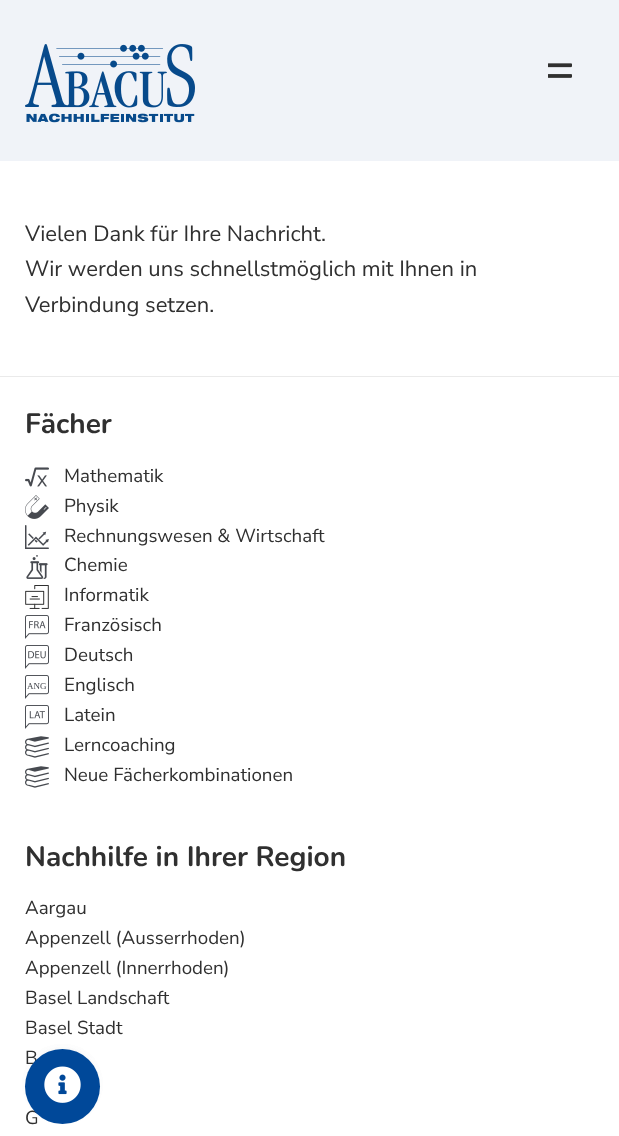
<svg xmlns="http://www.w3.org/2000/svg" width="619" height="1136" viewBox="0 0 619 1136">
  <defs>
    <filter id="blur1" x="-50%" y="-200%" width="200%" height="500%"><feGaussianBlur stdDeviation="4"/></filter>
  </defs>
  <rect width="100%" height="100%" fill="#ffffff"/>
  <rect x="0" y="0" width="619" height="161" fill="#f0f3f8"/>
  <image x="25" y="44" width="170" height="79" href="img1.png"/>
  <image x="548" y="63" width="24" height="15" href="img2.png"/>
  <text x="25" y="241" font-family="Nunito Sans" font-size="22" font-weight="200" fill="#303030">Vielen Dank für Ihre Nachricht.</text>
  <text x="25" y="276" font-family="Nunito Sans" font-size="22" font-weight="200" fill="#303030">Wir werden uns schnellstmöglich mit Ihnen in</text>
  <text x="25" y="312" font-family="Nunito Sans" font-size="22" font-weight="200" fill="#303030">Verbindung setzen.</text>
  <rect x="0" y="376" width="619" height="1" fill="#eaeaea"/>
  <text x="25" y="433" font-family="Nunito" font-size="28" font-weight="200" fill="#303030">Fächer</text>
  <image x="25" y="467" width="24" height="20" href="img3.png"/>
  <text x="64" y="482" font-family="Nunito Sans" font-size="18.75" font-weight="200" fill="#303030">Mathematik</text>
  <image x="25" y="495" width="24" height="24" href="img4.png"/>
  <text x="64" y="512" font-family="Nunito Sans" font-size="18.75" font-weight="200" fill="#303030">Physik</text>
  <image x="25" y="525" width="24" height="24" href="img5.png"/>
  <text x="64" y="542" font-family="Nunito Sans" font-size="18.75" font-weight="200" fill="#303030">Rechnungswesen &amp; Wirtschaft</text>
  <image x="26" y="555" width="23" height="24" href="img6.png"/>
  <text x="64" y="571" font-family="Nunito Sans" font-size="18.75" font-weight="200" fill="#303030">Chemie</text>
  <image x="25" y="585" width="24" height="24" href="img7.png"/>
  <text x="64" y="601" font-family="Nunito Sans" font-size="18.75" font-weight="200" fill="#303030">Informatik</text>
  <image x="25" y="615" width="24" height="24" href="img8.png"/>
  <text x="64" y="631" font-family="Nunito Sans" font-size="18.75" font-weight="200" fill="#303030">Französisch</text>
  <image x="25" y="645" width="24" height="24" href="img9.png"/>
  <text x="64" y="661" font-family="Nunito Sans" font-size="18.75" font-weight="200" fill="#303030">Deutsch</text>
  <image x="25" y="675" width="24" height="24" href="img10.png"/>
  <text x="64" y="691" font-family="Nunito Sans" font-size="18.75" font-weight="200" fill="#303030">Englisch</text>
  <text x="27" y="689" font-family="Liberation Serif" font-size="9" fill="#474a50">ANG</text>
  <image x="25" y="705" width="24" height="24" href="img11.png"/>
  <text x="64" y="721" font-family="Nunito Sans" font-size="18.75" font-weight="200" fill="#303030">Latein</text>
  <image x="25" y="736" width="24" height="22" href="img12.png"/>
  <text x="64" y="751" font-family="Nunito Sans" font-size="18.75" font-weight="200" fill="#303030">Lerncoaching</text>
  <image x="25" y="766" width="24" height="22" href="img12.png"/>
  <text x="64" y="781" font-family="Nunito Sans" font-size="18.75" font-weight="200" fill="#303030">Neue Fächerkombinationen</text>
  <text x="25" y="866" font-family="Nunito" font-size="28" font-weight="200" fill="#303030">Nachhilfe in Ihrer Region</text>
  <text x="25" y="914" font-family="Nunito Sans" font-size="18.75" font-weight="200" fill="#303030">Aargau</text>
  <text x="25" y="944" font-family="Nunito Sans" font-size="18.75" font-weight="200" fill="#303030">Appenzell (Ausserrhoden)</text>
  <text x="25" y="974" font-family="Nunito Sans" font-size="18.75" font-weight="200" fill="#303030">Appenzell (Innerrhoden)</text>
  <text x="25" y="1004" font-family="Nunito Sans" font-size="18.75" font-weight="200" fill="#303030">Basel Landschaft</text>
  <text x="25" y="1034" font-family="Nunito Sans" font-size="18.75" font-weight="200" fill="#303030">Basel Stadt</text>
  <text x="25" y="1064" font-family="Nunito Sans" font-size="18.75" font-weight="200" fill="#303030">B</text>
  <text x="25" y="1124" font-family="Nunito Sans" font-size="18.75" font-weight="200" fill="#303030">G</text>
  <rect x="31" y="1053" width="63" height="62" rx="31" fill="#8c98a4" fill-opacity="0.25" filter="url(#blur1)"/>
  <rect x="31" y="1053" width="63" height="62" rx="31" fill="#8c98a4" fill-opacity="0.25" filter="url(#blur1)"/>
  <circle cx="62.5" cy="1086.5" r="37.5" fill="#004899"/>
  <image x="44" y="1066" width="37" height="37" href="img13.png"/>
</svg>
